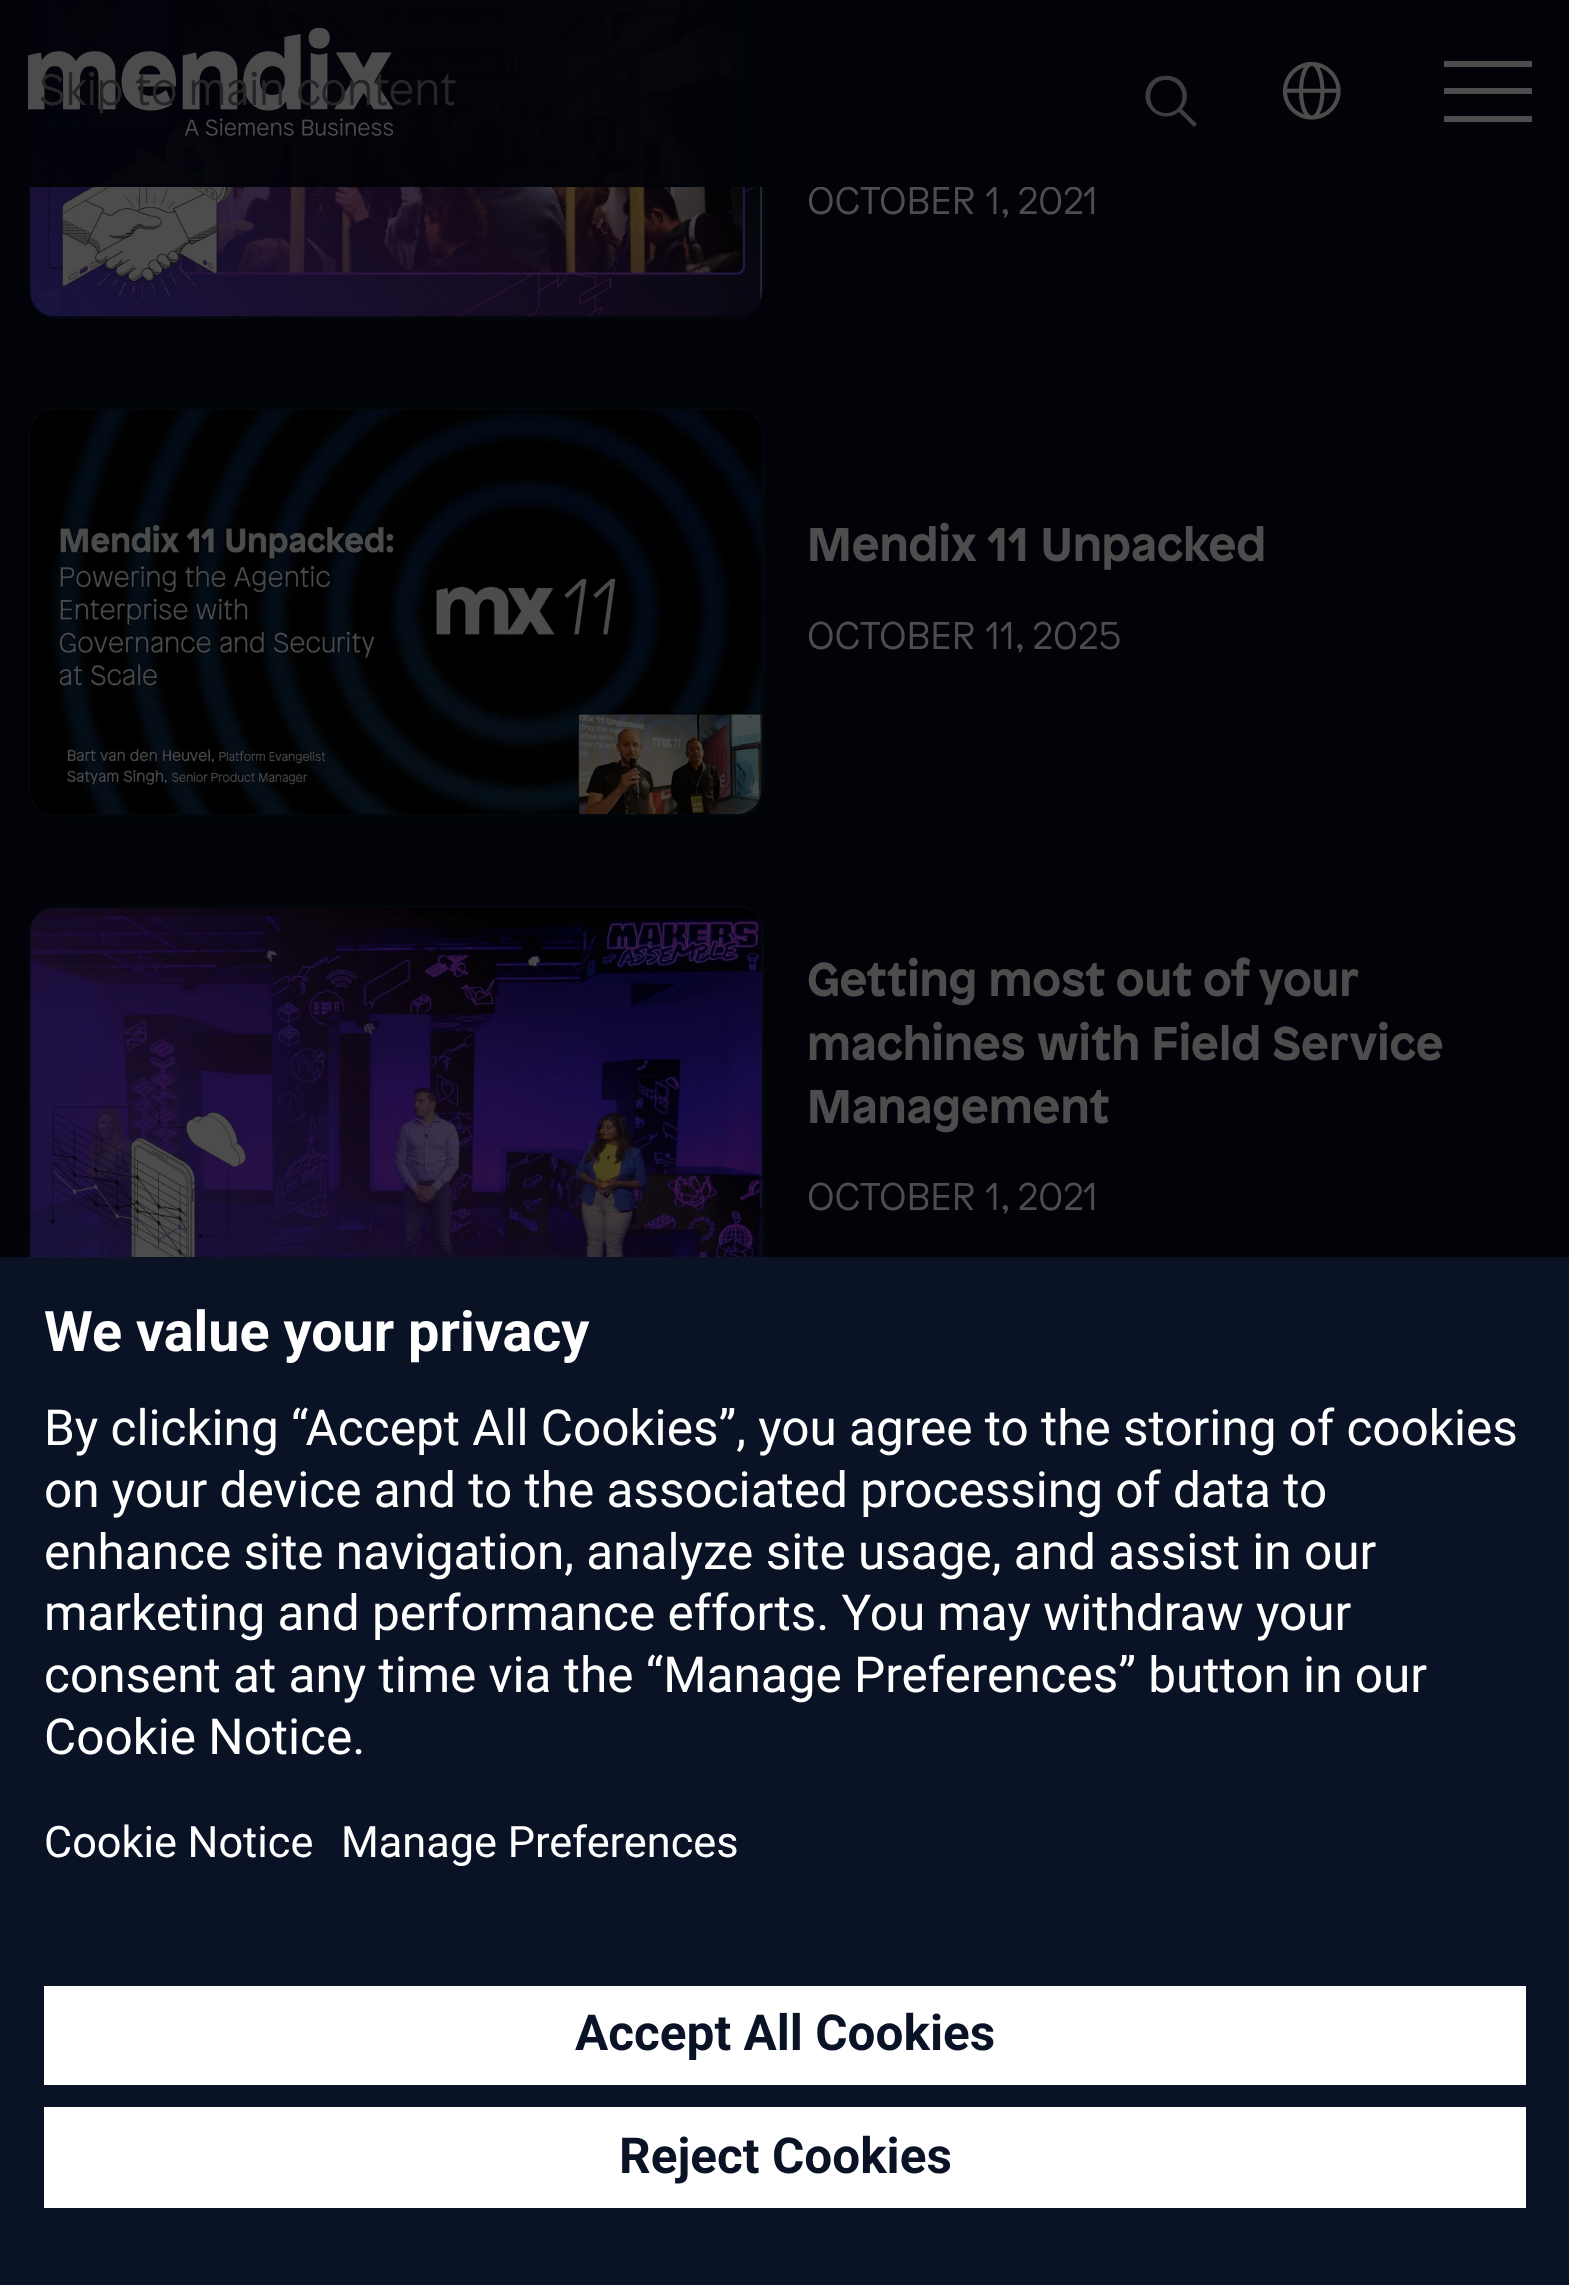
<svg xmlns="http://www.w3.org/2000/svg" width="1569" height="2285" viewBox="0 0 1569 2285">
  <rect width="100%" height="100%" fill="#010308"/>
  <rect x="29.5" y="-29.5" width="734" height="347" rx="26.5" fill="none" stroke="#03060b" stroke-width="3"/>
  <image x="30" y="0" width="732" height="317" href="img3.png"/>
  <rect x="28" y="0" width="737" height="184" fill="#010308" fill-opacity="0.95"/>
  <text x="807" y="214" font-family="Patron" font-size="38.5" font-weight="300" fill="#4d4d4d">OCTOBER 1, 2021</text>
  <rect x="28" y="184" width="1048" height="3" fill="#010308"/>
  <image x="28" y="28" width="365" height="108" href="img1.png"/>
  <path d="M1197 124L1182 109C1190 100 1188 86 1178 79C1172 75 1165 75 1158 77C1153 79 1149 83 1147 88C1139 108 1163 125 1179 112L1194 127ZM1166 113C1145 113 1145 80 1166 80C1188 80 1188 113 1166 113Z" fill="#4d4d4d" fill-opacity="0.8"/>
  <image x="1282" y="61" width="59" height="59" href="img2.png"/>
  <rect x="1444" y="61" width="88" height="6" fill="#4d4d4d"/>
  <rect x="1444" y="88" width="88" height="6" fill="#4d4d4d"/>
  <rect x="1444" y="116" width="88" height="6" fill="#4d4d4d"/>
  <text x="39" y="105" font-family="Patron" font-size="44" font-weight="300" fill="#262629">Skip to main content</text>
  <rect x="29.5" y="408.5" width="734" height="407" rx="26.5" fill="none" stroke="#03060b" stroke-width="3"/>
  <image x="30" y="410" width="732" height="405" href="img4.png"/>
  <text x="807" y="561" font-family="Patron" font-size="47.25" font-weight="bold" fill="#4d4d4d">Mendix 11 Unpacked</text>
  <text x="807" y="649" font-family="Patron" font-size="38.5" font-weight="300" fill="#4d4d4d">OCTOBER 11, 2025</text>
  <rect x="29.5" y="906.5" width="734" height="407" rx="26.5" fill="none" stroke="#03060b" stroke-width="3"/>
  <image x="30" y="907" width="732" height="350" href="img5.png"/>
  <text x="807" y="996" font-family="Patron" font-size="47.25" font-weight="bold" fill="#4d4d4d">Getting most out of your</text>
  <text x="807" y="1060" font-family="Patron" font-size="47.25" font-weight="bold" fill="#4d4d4d">machines with Field Service</text>
  <text x="807" y="1123" font-family="Patron" font-size="47.25" font-weight="bold" fill="#4d4d4d">Management</text>
  <text x="807" y="1210" font-family="Patron" font-size="38.5" font-weight="300" fill="#4d4d4d">OCTOBER 1, 2021</text>
  <rect x="0" y="1257" width="1569" height="1028" fill="#0a1325"/>
  <text x="44" y="1351" font-family="Roboto" font-size="55.75" font-weight="bold" fill="#ffffff">We value your privacy</text>
  <text x="44" y="1445" font-family="Roboto" font-size="49.5" fill="#ffffff">By clicking “Accept All Cookies”, you agree to the storing of cookies</text>
  <text x="44" y="1507" font-family="Roboto" font-size="49.5" fill="#ffffff">on your device and to the associated processing of data to</text>
  <text x="44" y="1569" font-family="Roboto" font-size="49.5" fill="#ffffff">enhance site navigation, analyze site usage, and assist in our</text>
  <text x="44" y="1630" font-family="Roboto" font-size="49.5" fill="#ffffff">marketing and performance efforts. You may withdraw your</text>
  <text x="44" y="1692" font-family="Roboto" font-size="49.5" fill="#ffffff">consent at any time via the “Manage Preferences” button in our</text>
  <text x="44" y="1754" font-family="Roboto" font-size="49.5" fill="#ffffff">Cookie Notice.</text>
  <text x="44" y="1857" font-family="Roboto" font-size="43.25" fill="#ffffff">Cookie Notice</text>
  <text x="341" y="1857" font-family="Roboto" font-size="43.25" fill="#ffffff">Manage Preferences</text>
  <rect x="44" y="1986" width="1482" height="99" fill="#ffffff"/>
  <text x="575" y="2050" font-family="Roboto" font-size="49.5" font-weight="bold" fill="#0a1325">Accept All Cookies</text>
  <rect x="44" y="2107" width="1482" height="101" fill="#ffffff"/>
  <text x="619" y="2173" font-family="Roboto" font-size="49.5" font-weight="bold" fill="#0a1325">Reject Cookies</text>
</svg>
